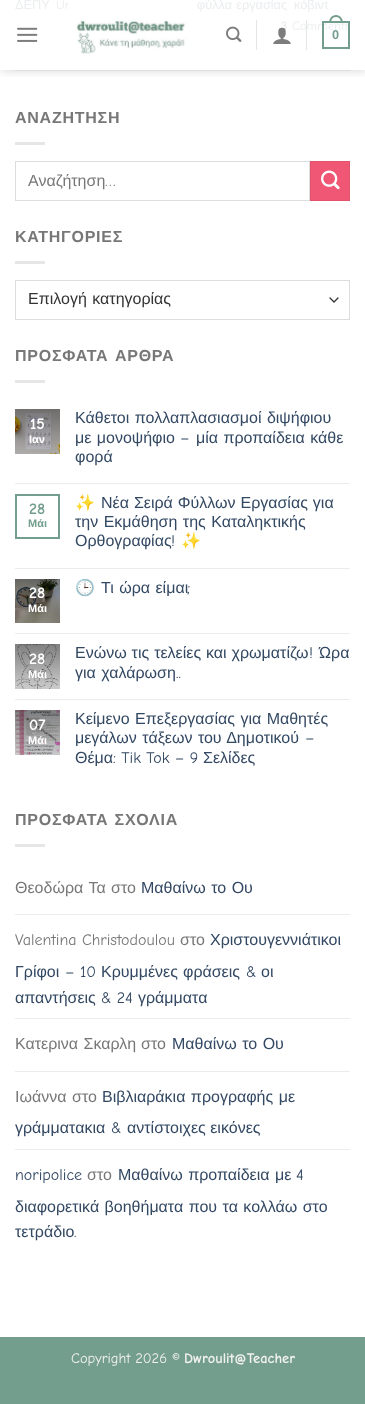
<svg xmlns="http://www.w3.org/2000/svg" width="365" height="1404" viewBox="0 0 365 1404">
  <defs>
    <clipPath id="clip1"><rect x="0" y="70" width="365" height="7"/></clipPath>
    <filter id="blur1" x="-50%" y="-200%" width="200%" height="500%"><feGaussianBlur stdDeviation="5"/></filter>
  </defs>
  <rect width="100%" height="100%" fill="#ffffff"/>
  <text x="15" y="9" font-family="Liberation Sans" font-size="12.75" fill="#ebedef">ΔΕΠΥ</text>
  <text x="56" y="9" font-family="Comic Neue" font-size="12.75" fill="#ebedef">Un</text>
  <text x="197" y="9" word-spacing="0.5" font-family="Liberation Sans" font-size="12.75" fill="#ebedef">φύλλα εργασίας</text>
  <text x="294" y="9" font-family="Liberation Sans" font-size="12.75" fill="#ebedef">κόβιντ</text>
  <text x="281" y="30" font-family="Comic Neue" font-size="12.75" font-weight="bold" fill="#ebedef">3</text>
  <text x="292" y="30" font-family="Comic Neue" font-size="12.75" fill="#ebedef">Comments</text>
  <text x="15" y="123" font-family="Liberation Sans" font-size="16" font-weight="bold" letter-spacing="0.75" fill="#777777">ΑΝΑΖΗΤΗΣΗ</text>
  <rect x="15" y="142" width="30" height="3" fill="#e6e6e6"/>
  <rect x="15.5" y="161.5" width="294" height="39" fill="none" stroke="#dddddd"/>
  <text x="28" y="186" font-family="Liberation Sans" font-size="16" fill="#777777">Αναζήτηση</text>
  <text x="105" y="186" font-family="Comic Neue" font-size="16" fill="#777777">…</text>
  <rect x="310.5" y="161.5" width="39" height="39" fill="#ef5774" stroke="#e3536e"/>
  <image x="321" y="170" width="19" height="20" href="img1.png"/>
  <text x="15" y="242" font-family="Liberation Sans" font-size="16" font-weight="bold" letter-spacing="0.75" fill="#777777">ΚΑΤΗΓΟΡΙΕΣ</text>
  <rect x="15" y="261" width="30" height="3" fill="#e6e6e6"/>
  <path d="M330 298L334 302L338 298" fill="none" stroke="#333333" stroke-width="1.3" stroke-linecap="round" stroke-linejoin="round"/>
  <rect x="15.5" y="280.5" width="334" height="39" fill="none" stroke="#dddddd"/>
  <text x="28" y="304" word-spacing="1" font-family="Liberation Sans" font-size="16" fill="#333333">Επιλογή κατηγορίας</text>
  <text x="15" y="361" word-spacing="2" font-family="Liberation Sans" font-size="16" font-weight="bold" letter-spacing="0.75" fill="#777777">ΠΡΟΣΦΑΤΑ ΑΡΘΡΑ</text>
  <rect x="15" y="380" width="30" height="3" fill="#e6e6e6"/>
  <image x="15" y="409" width="45" height="45" href="img2.png"/>
  <text x="30" y="429" font-family="Comic Neue" font-size="16" font-weight="bold" fill="#ffffff">15</text>
  <text x="29" y="443" font-family="Liberation Sans" font-size="11" font-weight="bold" fill="#ffffff">Ιαν</text>
  <text x="75" y="423" word-spacing="1" font-family="Liberation Sans" font-size="16" fill="#334862">Κάθετοι πολλαπλασιασμοί διψήφιου</text>
  <text x="75" y="443" word-spacing="1" font-family="Liberation Sans" font-size="16" fill="#334862">με μονοψήφιο</text>
  <text x="180" y="443" font-family="Comic Neue" font-size="16" fill="#334862">–</text>
  <text x="196" y="443" word-spacing="1" font-family="Liberation Sans" font-size="16" fill="#334862">μία προπαίδεια κάθε</text>
  <text x="75" y="462" font-family="Liberation Sans" font-size="16" fill="#334862">φορά</text>
  <rect x="15" y="483" width="335" height="1" fill="#ececec"/>
  <rect x="16" y="495" width="43" height="43" fill="none" stroke="#739d8d" stroke-width="2"/>
  <text x="29" y="514" font-family="Comic Neue" font-size="16" font-weight="bold" fill="#739d8d">28</text>
  <text x="28" y="527" font-family="Liberation Sans" font-size="11" font-weight="bold" fill="#739d8d">Μάι</text>
  <text x="75" y="508" font-family="Noto Color Emoji" font-size="16" fill="#334862">✨</text>
  <text x="101" y="508" word-spacing="0.5" font-family="Liberation Sans" font-size="16" fill="#334862">Νέα Σειρά Φύλλων Εργασίας για</text>
  <text x="75" y="527" word-spacing="1" font-family="Liberation Sans" font-size="16" fill="#334862">την Εκμάθηση της Καταληκτικής</text>
  <text x="75" y="546" font-family="Liberation Sans" font-size="16" fill="#334862">Ορθογραφίας</text>
  <text x="171" y="546" font-family="Comic Neue" font-size="16" fill="#334862">!</text>
  <text x="181" y="546" font-family="Noto Color Emoji" font-size="16" fill="#334862">✨</text>
  <rect x="15" y="568" width="335" height="1" fill="#ececec"/>
  <image x="15" y="579" width="45" height="44" href="img3.png"/>
  <text x="29" y="598" font-family="Comic Neue" font-size="16" font-weight="bold" fill="#ffffff">28</text>
  <text x="28" y="612" font-family="Liberation Sans" font-size="11" font-weight="bold" fill="#ffffff">Μάι</text>
  <text x="75" y="593" font-family="Noto Color Emoji" font-size="16" fill="#334862">🕒</text>
  <text x="101" y="593" word-spacing="1" font-family="Liberation Sans" font-size="16" fill="#334862">Τι ώρα είμαι</text>
  <text x="187" y="593" font-family="Comic Neue" font-size="16" fill="#334862">;</text>
  <rect x="15" y="633" width="335" height="1" fill="#ececec"/>
  <image x="15" y="644" width="45" height="45" href="img4.png"/>
  <text x="29" y="664" font-family="Comic Neue" font-size="16" font-weight="bold" fill="#ffffff">28</text>
  <text x="28" y="678" font-family="Liberation Sans" font-size="11" font-weight="bold" fill="#ffffff">Μάι</text>
  <text x="75" y="658" word-spacing="0.5" font-family="Liberation Sans" font-size="16" fill="#334862">Ενώνω τις τελείες και χρωματίζω</text>
  <text x="309" y="658" font-family="Comic Neue" font-size="16" fill="#334862">!</text>
  <text x="319" y="658" font-family="Liberation Sans" font-size="16" fill="#334862">Ώρα</text>
  <text x="75" y="678" word-spacing="1" font-family="Liberation Sans" font-size="16" fill="#334862">για χαλάρωση</text>
  <text x="176" y="678" font-family="Comic Neue" font-size="16" fill="#334862">..</text>
  <rect x="15" y="699" width="335" height="1" fill="#ececec"/>
  <image x="15" y="710" width="45" height="45" href="img5.png"/>
  <text x="29" y="730" font-family="Comic Neue" font-size="16" font-weight="bold" fill="#ffffff">07</text>
  <text x="28" y="744" font-family="Liberation Sans" font-size="11" font-weight="bold" fill="#ffffff">Μάι</text>
  <text x="75" y="724" word-spacing="1" font-family="Liberation Sans" font-size="16" fill="#334862">Κείμενο Επεξεργασίας για Μαθητές</text>
  <text x="75" y="743" word-spacing="1" font-family="Liberation Sans" font-size="16" fill="#334862">μεγάλων τάξεων του Δημοτικού</text>
  <text x="305" y="743" font-family="Comic Neue" font-size="16" fill="#334862">–</text>
  <text x="75" y="763" font-family="Liberation Sans" font-size="16" fill="#334862">Θέμα</text>
  <text x="113" y="763" font-family="Comic Neue" font-size="16" fill="#334862">: Tik Tok – 9</text>
  <text x="203" y="763" font-family="Liberation Sans" font-size="16" fill="#334862">Σελίδες</text>
  <text x="15" y="825" word-spacing="1" font-family="Liberation Sans" font-size="16" font-weight="bold" letter-spacing="0.75" fill="#777777">ΠΡΟΣΦΑΤΑ ΣΧΟΛΙΑ</text>
  <rect x="15" y="844" width="30" height="3" fill="#e6e6e6"/>
  <text x="15" y="893" word-spacing="1" font-family="Liberation Sans" font-size="16" fill="#777777">Θεοδώρα Τα</text>
  <text x="111" y="893" font-family="Liberation Sans" font-size="16" fill="#777777">στο</text>
  <text x="141" y="893" word-spacing="1" font-family="Liberation Sans" font-size="16" fill="#334862">Μαθαίνω το Ου</text>
  <rect x="15" y="914" width="335" height="1" fill="#ececec"/>
  <text x="15" y="945" font-family="Comic Neue" font-size="16" fill="#777777">Valentina Christodoulou</text>
  <text x="180" y="945" font-family="Liberation Sans" font-size="16" fill="#777777">στο</text>
  <text x="210" y="945" font-family="Liberation Sans" font-size="16" fill="#334862">Χριστουγεννιάτικοι</text>
  <text x="15" y="977" font-family="Liberation Sans" font-size="16" fill="#334862">Γρίφοι</text>
  <text x="65" y="977" font-family="Comic Neue" font-size="16" fill="#334862">– 10</text>
  <text x="101" y="977" font-family="Liberation Sans" font-size="16" fill="#334862">Κρυμμένες</text>
  <text x="183" y="977" font-family="Liberation Sans" font-size="16" fill="#334862">φράσεις</text>
  <text x="246" y="977" font-family="Comic Neue" font-size="16" fill="#334862">&amp;</text>
  <text x="261" y="977" font-family="Liberation Sans" font-size="16" fill="#334862">οι</text>
  <text x="15" y="1003" font-family="Liberation Sans" font-size="16" fill="#334862">απαντήσεις</text>
  <text x="101" y="1003" font-family="Comic Neue" font-size="16" fill="#334862">&amp; 24</text>
  <text x="138" y="1003" font-family="Liberation Sans" font-size="16" fill="#334862">γράμματα</text>
  <rect x="15" y="1018" width="335" height="1" fill="#ececec"/>
  <text x="15" y="1049" word-spacing="1" font-family="Liberation Sans" font-size="16" fill="#777777">Κατερινα Σκαρλη</text>
  <text x="141" y="1049" font-family="Liberation Sans" font-size="16" fill="#777777">στο</text>
  <text x="172" y="1049" word-spacing="1" font-family="Liberation Sans" font-size="16" fill="#334862">Μαθαίνω το Ου</text>
  <rect x="15" y="1071" width="335" height="1" fill="#ececec"/>
  <text x="15" y="1102" font-family="Liberation Sans" font-size="16" fill="#777777">Ιωάννα</text>
  <text x="72" y="1102" font-family="Liberation Sans" font-size="16" fill="#777777">στο</text>
  <text x="102" y="1102" word-spacing="1" font-family="Liberation Sans" font-size="16" fill="#334862">Βιβλιαράκια προγραφής με</text>
  <text x="15" y="1133" font-family="Liberation Sans" font-size="16" fill="#334862">γράμματακια</text>
  <text x="111" y="1133" font-family="Comic Neue" font-size="16" fill="#334862">&amp;</text>
  <text x="127" y="1133" font-family="Liberation Sans" font-size="16" fill="#334862">αντίστοιχες εικόνες</text>
  <rect x="15" y="1149" width="335" height="1" fill="#ececec"/>
  <text x="15" y="1180" font-family="Comic Neue" font-size="16" fill="#334862">noripolice</text>
  <text x="87" y="1180" font-family="Liberation Sans" font-size="16" fill="#777777">στο</text>
  <text x="118" y="1180" word-spacing="1" font-family="Liberation Sans" font-size="16" fill="#334862">Μαθαίνω προπαίδεια με</text>
  <text x="296" y="1180" font-family="Comic Neue" font-size="16" fill="#334862">4</text>
  <text x="15" y="1212" word-spacing="1" font-family="Liberation Sans" font-size="16" fill="#334862">διαφορετικά βοηθήματα που τα κολλάω στο</text>
  <text x="15" y="1237" font-family="Liberation Sans" font-size="16" fill="#334862">τετράδιο</text>
  <text x="74" y="1237" font-family="Comic Neue" font-size="16" fill="#334862">.</text>
  <g clip-path="url(#clip1)">
    <rect x="1" y="1" width="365" height="70" fill="#000000" fill-opacity="0.15" filter="url(#blur1)"/>
  </g>
  <image x="17" y="27" width="21" height="15" href="img6.png"/>
  <image x="69" y="0" width="123" height="54" href="img7.png"/>
  <image x="226" y="26" width="16" height="16" href="img8.png"/>
  <rect x="256" y="20" width="1" height="30" fill="#e5e5e5"/>
  <image x="273" y="27" width="18" height="17" href="img9.png"/>
  <rect x="306" y="20" width="1" height="30" fill="#e5e5e5"/>
  <rect x="323" y="22" width="26" height="26" fill="none" stroke="#739d8d" stroke-width="2"/>
  <path d="M336 15C340.5 15 343 19 343 23H329C329 19 331.5 15 336 15ZM336 17C339.5 17 341 20 341 23H331C331 20 332.5 17 336 17Z" fill="#739d8d" fill-rule="evenodd"/>
  <text x="332" y="39" font-family="Liberation Sans" font-size="12.75" font-weight="bold" fill="#739d8d">0</text>
  <rect x="15" y="70" width="335" height="1" fill="#dfdfdf"/>
  <rect x="0" y="1337" width="365" height="67" fill="#739d8d"/>
  <text x="71" y="1363" font-family="Comic Neue" font-size="14.5" fill="#f1f1f1">Copyright 2026 ©</text>
  <text x="184" y="1363" font-family="Comic Neue" font-size="14.5" font-weight="bold" fill="#f1f1f1">Dwroulit@Teacher</text>
</svg>
